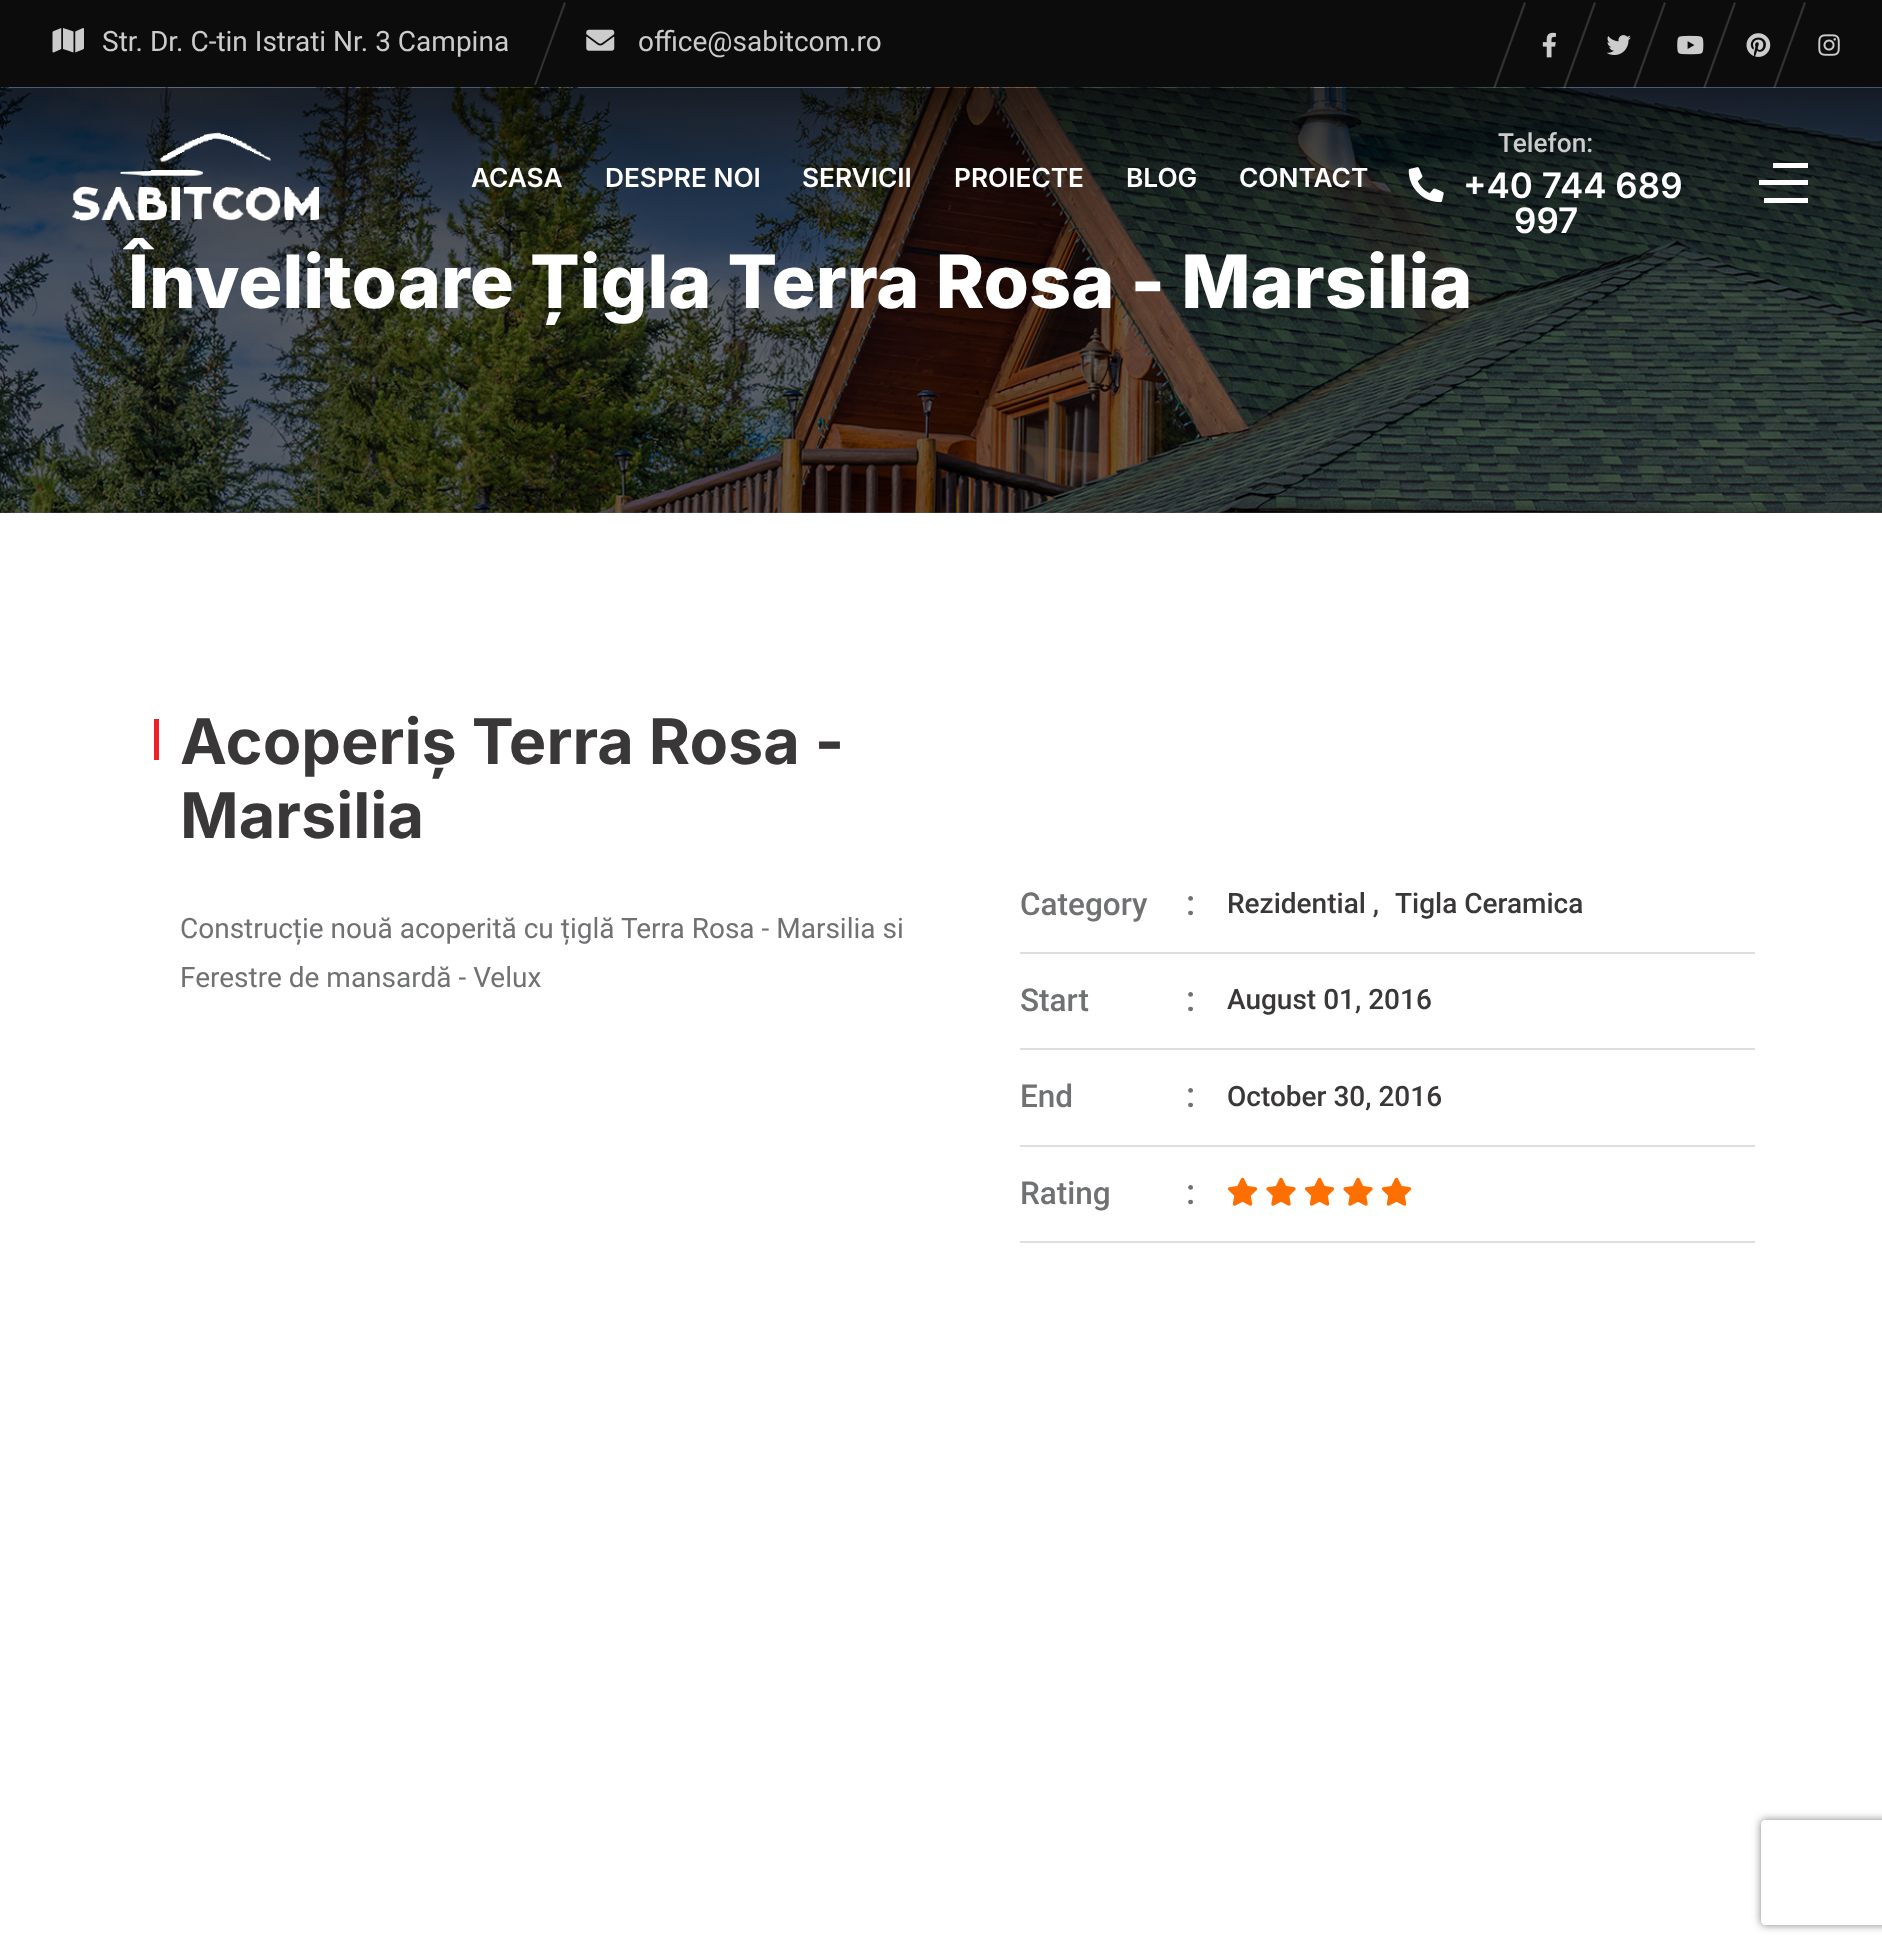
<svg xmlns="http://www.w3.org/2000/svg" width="1882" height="1949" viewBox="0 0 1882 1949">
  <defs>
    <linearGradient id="g1" gradientUnits="userSpaceOnUse" x1="942" y1="87" x2="942" y2="513"><stop offset="0" stop-color="#000000" stop-opacity="0.58"/><stop offset="0.2" stop-color="#000000" stop-opacity="0.23"/><stop offset="0.44" stop-color="#000000" stop-opacity="0"/></linearGradient>
    <clipPath id="clip1"><path d="M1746 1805H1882V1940H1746ZM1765 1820H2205C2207 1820 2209 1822 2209 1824V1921C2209 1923 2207 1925 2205 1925H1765C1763 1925 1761 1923 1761 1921V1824C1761 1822 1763 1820 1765 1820Z" clip-rule="evenodd"/></clipPath>
    <filter id="blur1" x="-50%" y="-200%" width="200%" height="500%"><feGaussianBlur stdDeviation="4.5"/></filter>
  </defs>
  <rect width="100%" height="100%" fill="#ffffff"/>
  <rect x="0" y="0" width="1882" height="88" fill="#0c0c0c"/>
  <image x="52" y="28" width="32" height="25" href="img1.png"/>
  <text x="102" y="51" font-family="Roboto" font-size="28" fill="#cccccc">Str. Dr. C-tin Istrati Nr. 3 Campina</text>
  <path d="M564 2L566 3L536 85H534Z" fill="#323232"/>
  <image x="586" y="29" width="29" height="22" href="img2.png"/>
  <text x="638" y="51" font-family="Roboto" font-size="28" fill="#cccccc">office@sabitcom.ro</text>
  <path d="M1524 2L1526 3L1495 89L1493 88Z" fill="#323232"/>
  <image x="1542" y="32" width="14" height="26" href="img3.png"/>
  <path d="M1594 2L1596 3L1565 89L1563 88Z" fill="#323232"/>
  <image x="1606" y="35" width="25" height="20" href="img4.png"/>
  <path d="M1664 2L1666 3L1635 89L1633 88Z" fill="#323232"/>
  <image x="1677" y="35" width="27" height="20" href="img5.png"/>
  <path d="M1734 2L1736 3L1705 89L1703 88Z" fill="#323232"/>
  <image x="1746" y="33" width="25" height="24" href="img6.png"/>
  <path d="M1804 2L1806 3L1775 89L1773 88Z" fill="#323232"/>
  <image x="1818" y="34" width="22" height="22" href="img7.png"/>
  <image x="0" y="87" width="1882" height="426" href="img10.png"/>
  <rect x="0" y="88" width="1882" height="425" fill="#000000" fill-opacity="0.6"/>
  <rect x="0" y="88" width="1882" height="175" fill="url(#g1)"/>
  <image x="72" y="132" width="247" height="89" href="img8.png"/>
  <text x="471" y="187" font-family="Inter" font-size="26.25" font-weight="600" fill="#ffffff">ACASA</text>
  <text x="605" y="187" font-family="Inter" font-size="26.25" font-weight="600" fill="#ffffff">DESPRE NOI</text>
  <text x="802" y="187" font-family="Inter" font-size="26.25" font-weight="600" fill="#ffffff">SERVICII</text>
  <text x="954" y="187" font-family="Inter" font-size="26.25" font-weight="600" fill="#ffffff">PROIECTE</text>
  <text x="1126" y="187" font-family="Inter" font-size="26.25" font-weight="600" fill="#ffffff">BLOG</text>
  <text x="1239" y="187" font-family="Inter" font-size="26.25" font-weight="600" fill="#ffffff">CONTACT</text>
  <text x="1498" y="152" font-family="Roboto" font-size="26.25" font-weight="500" fill="#cccccc">Telefon:</text>
  <image x="1408" y="167" width="36" height="36" href="img9.png"/>
  <text x="1463" y="198" font-family="Inter" font-size="35" font-weight="600" fill="#ffffff">+40 744 689</text>
  <text x="1514" y="233" font-family="Inter" font-size="35" font-weight="600" fill="#ffffff">997</text>
  <rect x="1773" y="163" width="35" height="5" fill="#ffffff"/>
  <rect x="1759" y="180" width="49" height="5" fill="#ffffff"/>
  <rect x="1764" y="198" width="44" height="5" fill="#ffffff"/>
  <text x="128" y="308" font-family="Inter" font-size="73.5" font-weight="800" fill="#ffffff">Învelitoare Țigla Terra Rosa - Marsilia</text>
  <rect x="154" y="719" width="5" height="41" fill="#ee212b"/>
  <text x="180" y="764" font-family="Inter" font-size="63" font-weight="bold" fill="#393738">Acoperiș Terra Rosa -</text>
  <text x="180" y="838" font-family="Inter" font-size="63" font-weight="bold" fill="#393738">Marsilia</text>
  <text x="180" y="938" font-family="Roboto" font-size="28" fill="#707173">Construcție nouă acoperită cu țiglă Terra Rosa - Marsilia si</text>
  <text x="180" y="987" font-family="Roboto" font-size="28" fill="#707173">Ferestre de mansardă - Velux</text>
  <rect x="1020" y="952" width="735" height="2" fill="#dedede"/>
  <text x="1020" y="915" font-family="Roboto" font-size="31.5" font-weight="500" fill="#707173">Category</text>
  <text x="1186" y="915" font-family="Roboto" font-size="35" font-weight="500" fill="#707173">:</text>
  <text x="1227" y="913" font-family="Roboto" font-size="28" font-weight="500" fill="#393738">Rezidential ,</text>
  <text x="1395" y="913" font-family="Roboto" font-size="28" font-weight="500" fill="#393738">Tigla Ceramica</text>
  <rect x="1020" y="1048" width="735" height="2" fill="#dedede"/>
  <text x="1020" y="1011" font-family="Roboto" font-size="31.5" font-weight="500" fill="#707173">Start</text>
  <text x="1186" y="1011" font-family="Roboto" font-size="35" font-weight="500" fill="#707173">:</text>
  <text x="1227" y="1009" font-family="Roboto" font-size="28" font-weight="500" fill="#393738">August 01, 2016</text>
  <rect x="1020" y="1145" width="735" height="2" fill="#dedede"/>
  <text x="1020" y="1107" font-family="Roboto" font-size="31.5" font-weight="500" fill="#707173">End</text>
  <text x="1186" y="1107" font-family="Roboto" font-size="35" font-weight="500" fill="#707173">:</text>
  <text x="1227" y="1106" font-family="Roboto" font-size="28" font-weight="500" fill="#393738">October 30, 2016</text>
  <rect x="1020" y="1241" width="735" height="2" fill="#dedede"/>
  <text x="1020" y="1204" font-family="Roboto" font-size="31.5" font-weight="500" fill="#707173">Rating</text>
  <text x="1186" y="1204" font-family="Roboto" font-size="35" font-weight="500" fill="#707173">:</text>
  <image x="1227" y="1177" width="31" height="29" href="img11.png"/>
  <image x="1266" y="1177" width="30" height="29" href="img12.png"/>
  <image x="1304" y="1177" width="31" height="29" href="img11.png"/>
  <image x="1343" y="1177" width="30" height="29" href="img12.png"/>
  <image x="1381" y="1177" width="31" height="29" href="img11.png"/>
  <g clip-path="url(#clip1)">
    <rect x="1761" y="1820" width="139" height="105" rx="4" fill="#808080" filter="url(#blur1)"/>
  </g>
</svg>
